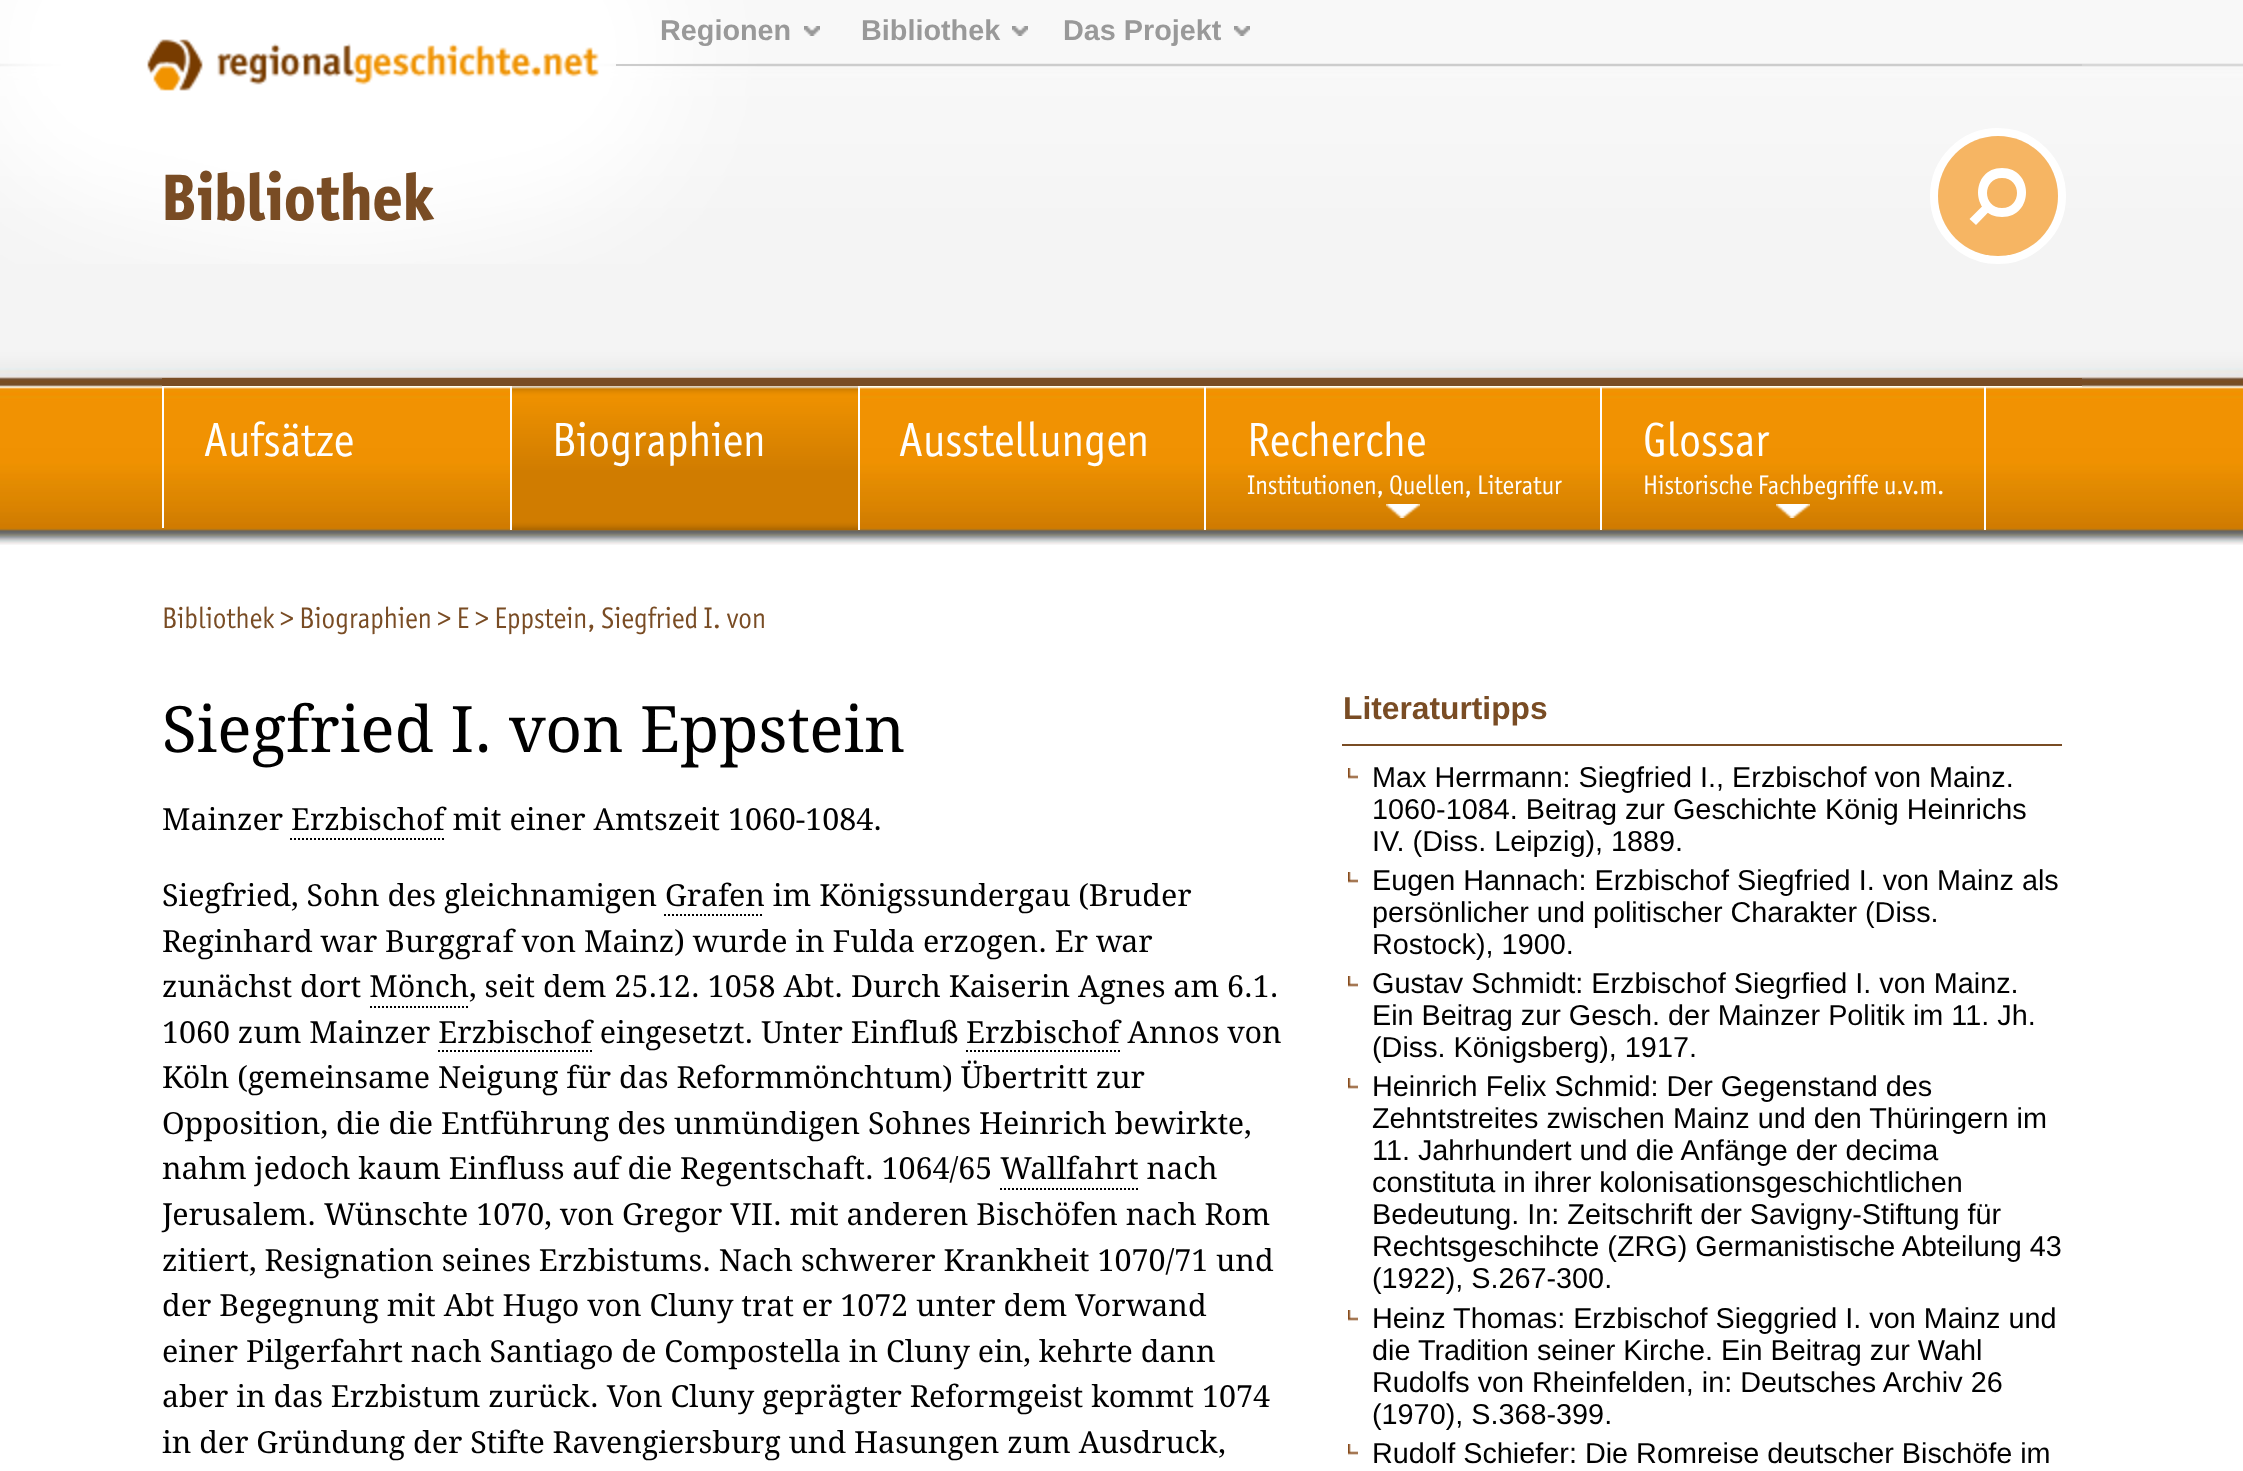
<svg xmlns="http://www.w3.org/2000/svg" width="2243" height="1471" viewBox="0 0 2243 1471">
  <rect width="100%" height="100%" fill="#ffffff"/>
  <image x="0" y="0" width="2243" height="545" href="img1.png"/>
  <image x="0" y="0" width="757" height="264" href="img2.png"/>
  <rect x="616" y="64" width="1466" height="2" fill="#cccccc"/>
  <text x="660" y="40" font-family="Liberation Sans" font-size="28.8" font-weight="bold" fill="#999999">Regionen</text>
  <image x="804" y="26" width="16" height="10" href="img3.png"/>
  <text x="861" y="40" font-family="Liberation Sans" font-size="28.8" font-weight="bold" fill="#999999">Bibliothek</text>
  <image x="1012" y="26" width="16" height="10" href="img3.png"/>
  <text x="1063" y="40" font-family="Liberation Sans" font-size="28.8" font-weight="bold" fill="#999999">Das Projekt</text>
  <image x="1234" y="26" width="16" height="10" href="img3.png"/>
  <image x="147" y="39" width="452" height="52" href="img4.png"/>
  <text x="162" y="220" font-family="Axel" font-size="64" font-weight="bold" fill="#794c24">Bibliothek</text>
  <circle cx="1998" cy="196" r="64" fill="none" stroke="#ffffff" stroke-width="8"/>
  <circle cx="1998" cy="196" r="60" fill="#f6b563"/>
  <path d="M2002 168C1970 168 1970 217 2002 217C2034 217 2034 168 2002 168ZM2002 208C1982 208 1982 178 2002 178C2022 178 2022 208 2002 208Z" fill="#ffffff"/>
  <path d="M1969.5 219L1985 203.5L1991 209.5L1976 225Z" fill="#ffffff"/>
  <rect x="162" y="386" width="1920" height="1" fill="#fffff3"/>
  <rect x="162" y="378" width="1920" height="8" fill="#794c24"/>
  <rect x="162" y="386" width="2" height="142" fill="#ffffff"/>
  <rect x="510" y="386" width="2" height="144" fill="#ffffff"/>
  <text x="204" y="456" font-family="Axel" font-size="46.5" fill="#ffffff">Aufsätze</text>
  <image x="512" y="386" width="346" height="144" href="img5.png"/>
  <rect x="858" y="386" width="2" height="144" fill="#ffffff"/>
  <text x="552" y="456" font-family="Axel" font-size="46.5" fill="#ffffff">Biographien</text>
  <rect x="1204" y="386" width="2" height="144" fill="#ffffff"/>
  <text x="899" y="456" font-family="Axel" font-size="46.5" fill="#ffffff">Ausstellungen</text>
  <rect x="1600" y="386" width="2" height="144" fill="#ffffff"/>
  <image x="1386" y="504" width="34" height="14" href="img6.png"/>
  <text x="1247" y="456" font-family="Axel" font-size="46.5" fill="#ffffff">Recherche</text>
  <text x="1247" y="494" font-family="Axel" font-size="26" fill="#ffffff">Institutionen, Quellen, Literatur</text>
  <rect x="1984" y="386" width="2" height="144" fill="#ffffff"/>
  <image x="1776" y="504" width="34" height="14" href="img6.png"/>
  <text x="1643" y="456" font-family="Axel" font-size="46.5" fill="#ffffff">Glossar</text>
  <text x="1643" y="494" font-family="Axel" font-size="26" fill="#ffffff">Historische Fachbegriffe u.v.m.</text>
  <text x="162" y="628" font-family="Axel" font-size="28.8" fill="#794c24">Bibliothek &gt; Biographien &gt; E &gt; Eppstein, Siegfried I. von</text>
  <text x="162" y="752" font-family="Droid Serif" font-size="64" fill="#000000">Siegfried I. von Eppstein</text>
  <text x="162" y="830" font-family="Droid Serif" font-size="30.4" fill="#000000">Mainzer Erzbischof mit einer Amtszeit 1060-1084.</text>
  <path d="M290 839H444" fill="none" stroke="#000000" stroke-width="2" stroke-dasharray="2 2"/>
  <text x="162" y="906" font-family="Droid Serif" font-size="30.4" fill="#000000">Siegfried, Sohn des gleichnamigen</text>
  <text x="665" y="906" font-family="Droid Serif" font-size="30.4" fill="#000000">Grafen im Königssundergau (Bruder</text>
  <path d="M664 915H764" fill="none" stroke="#000000" stroke-width="2" stroke-dasharray="2 2"/>
  <text x="162" y="952" font-family="Droid Serif" font-size="30.4" fill="#000000">Reginhard war Burggraf von Mainz) wurde in Fulda erzogen. Er war</text>
  <text x="162" y="997" font-family="Droid Serif" font-size="30.4" fill="#000000">zunächst dort Mönch, seit dem 25.12. 1058 Abt. Durch Kaiserin Agnes am 6.1.</text>
  <path d="M370 1007H468" fill="none" stroke="#000000" stroke-width="2" stroke-dasharray="2 2"/>
  <text x="162" y="1043" font-family="Droid Serif" font-size="30.4" fill="#000000">1060 zum Mainzer Erzbischof eingesetzt. Unter Einfluß</text>
  <text x="966" y="1043" font-family="Droid Serif" font-size="30.4" fill="#000000">Erzbischof Annos von</text>
  <path d="M966 1051H1120" fill="none" stroke="#000000" stroke-width="2" stroke-dasharray="2 2"/>
  <path d="M438 1051H592" fill="none" stroke="#000000" stroke-width="2" stroke-dasharray="2 2"/>
  <text x="162" y="1088" font-family="Droid Serif" font-size="30.4" fill="#000000">Köln (gemeinsame Neigung für das Reformmönchtum) Übertritt zur</text>
  <text x="162" y="1134" font-family="Droid Serif" font-size="30.4" fill="#000000">Opposition, die die Entführung des unmündigen Sohnes Heinrich bewirkte,</text>
  <text x="162" y="1179" font-family="Droid Serif" font-size="30.4" fill="#000000">nahm jedoch kaum Einfluss auf die Regentschaft. 1064/65 Wallfahrt nach</text>
  <path d="M1000 1189H1138" fill="none" stroke="#000000" stroke-width="2" stroke-dasharray="2 2"/>
  <text x="162" y="1225" font-family="Droid Serif" font-size="30.4" fill="#000000">Jerusalem. Wünschte 1070, von Gregor VII. mit anderen Bischöfen nach Rom</text>
  <text x="162" y="1271" font-family="Droid Serif" font-size="30.4" fill="#000000">zitiert, Resignation seines Erzbistums. Nach schwerer Krankheit 1070/71 und</text>
  <text x="162" y="1316" font-family="Droid Serif" font-size="30.4" fill="#000000">der Begegnung mit Abt Hugo von Cluny trat er 1072 unter dem Vorwand</text>
  <text x="162" y="1362" font-family="Droid Serif" font-size="30.4" fill="#000000">einer Pilgerfahrt nach Santiago de Compostella in Cluny ein, kehrte dann</text>
  <text x="162" y="1407" font-family="Droid Serif" font-size="30.4" fill="#000000">aber in das Erzbistum zurück. Von Cluny geprägter Reformgeist kommt 1074</text>
  <text x="162" y="1453" font-family="Droid Serif" font-size="30.4" fill="#000000">in der Gründung der Stifte Ravengiersburg und Hasungen zum Ausdruck,</text>
  <rect x="1342" y="744" width="720" height="2" fill="#794c24"/>
  <text x="1343" y="719" font-family="Liberation Sans" font-size="31.75" font-weight="bold" fill="#794c24">Literaturtipps</text>
  <image x="1348" y="768" width="10" height="11" href="img7.png"/>
  <text x="1372" y="787" font-family="Liberation Sans" font-size="28.8" fill="#000000">Max Herrmann: Siegfried I., Erzbischof von Mainz.</text>
  <text x="1372" y="819" font-family="Liberation Sans" font-size="28.8" fill="#000000">1060-1084. Beitrag zur Geschichte König Heinrichs</text>
  <text x="1372" y="851" font-family="Liberation Sans" font-size="28.8" fill="#000000">IV. (Diss. Leipzig), 1889.</text>
  <image x="1348" y="872" width="10" height="11" href="img7.png"/>
  <text x="1372" y="890" font-family="Liberation Sans" font-size="28.8" fill="#000000">Eugen Hannach: Erzbischof Siegfried I. von Mainz als</text>
  <text x="1372" y="922" font-family="Liberation Sans" font-size="28.8" fill="#000000">persönlicher und politischer Charakter (Diss.</text>
  <text x="1372" y="954" font-family="Liberation Sans" font-size="28.8" fill="#000000">Rostock), 1900.</text>
  <image x="1348" y="976" width="10" height="11" href="img7.png"/>
  <text x="1372" y="993" font-family="Liberation Sans" font-size="28.8" fill="#000000">Gustav Schmidt: Erzbischof Siegrfied I. von Mainz.</text>
  <text x="1372" y="1025" font-family="Liberation Sans" font-size="28.8" fill="#000000">Ein Beitrag zur Gesch. der Mainzer Politik im 11. Jh.</text>
  <text x="1372" y="1057" font-family="Liberation Sans" font-size="28.8" fill="#000000">(Diss. Königsberg), 1917.</text>
  <image x="1348" y="1078" width="10" height="11" href="img7.png"/>
  <text x="1372" y="1096" font-family="Liberation Sans" font-size="28.8" fill="#000000">Heinrich Felix Schmid: Der Gegenstand des</text>
  <text x="1372" y="1128" font-family="Liberation Sans" font-size="28.8" fill="#000000">Zehntstreites zwischen Mainz und den Thüringern im</text>
  <text x="1372" y="1160" font-family="Liberation Sans" font-size="28.8" fill="#000000">11. Jahrhundert und die Anfänge der decima</text>
  <text x="1372" y="1192" font-family="Liberation Sans" font-size="28.8" fill="#000000">constituta in ihrer kolonisationsgeschichtlichen</text>
  <text x="1372" y="1224" font-family="Liberation Sans" font-size="28.8" fill="#000000">Bedeutung. In: Zeitschrift der Savigny-Stiftung für</text>
  <text x="1372" y="1256" font-family="Liberation Sans" font-size="28.8" fill="#000000">Rechtsgeschihcte (ZRG) Germanistische Abteilung 43</text>
  <text x="1372" y="1288" font-family="Liberation Sans" font-size="28.8" fill="#000000">(1922), S.267-300.</text>
  <image x="1348" y="1310" width="10" height="11" href="img7.png"/>
  <text x="1372" y="1328" font-family="Liberation Sans" font-size="28.8" fill="#000000">Heinz Thomas: Erzbischof Sieggried I. von Mainz und</text>
  <text x="1372" y="1360" font-family="Liberation Sans" font-size="28.8" fill="#000000">die Tradition seiner Kirche. Ein Beitrag zur Wahl</text>
  <text x="1372" y="1392" font-family="Liberation Sans" font-size="28.8" fill="#000000">Rudolfs von Rheinfelden, in: Deutsches Archiv 26</text>
  <text x="1372" y="1424" font-family="Liberation Sans" font-size="28.8" fill="#000000">(1970), S.368-399.</text>
  <image x="1348" y="1444" width="10" height="11" href="img7.png"/>
  <text x="1372" y="1463" font-family="Liberation Sans" font-size="28.8" fill="#000000">Rudolf Schiefer: Die Romreise deutscher Bischöfe im</text>
</svg>
